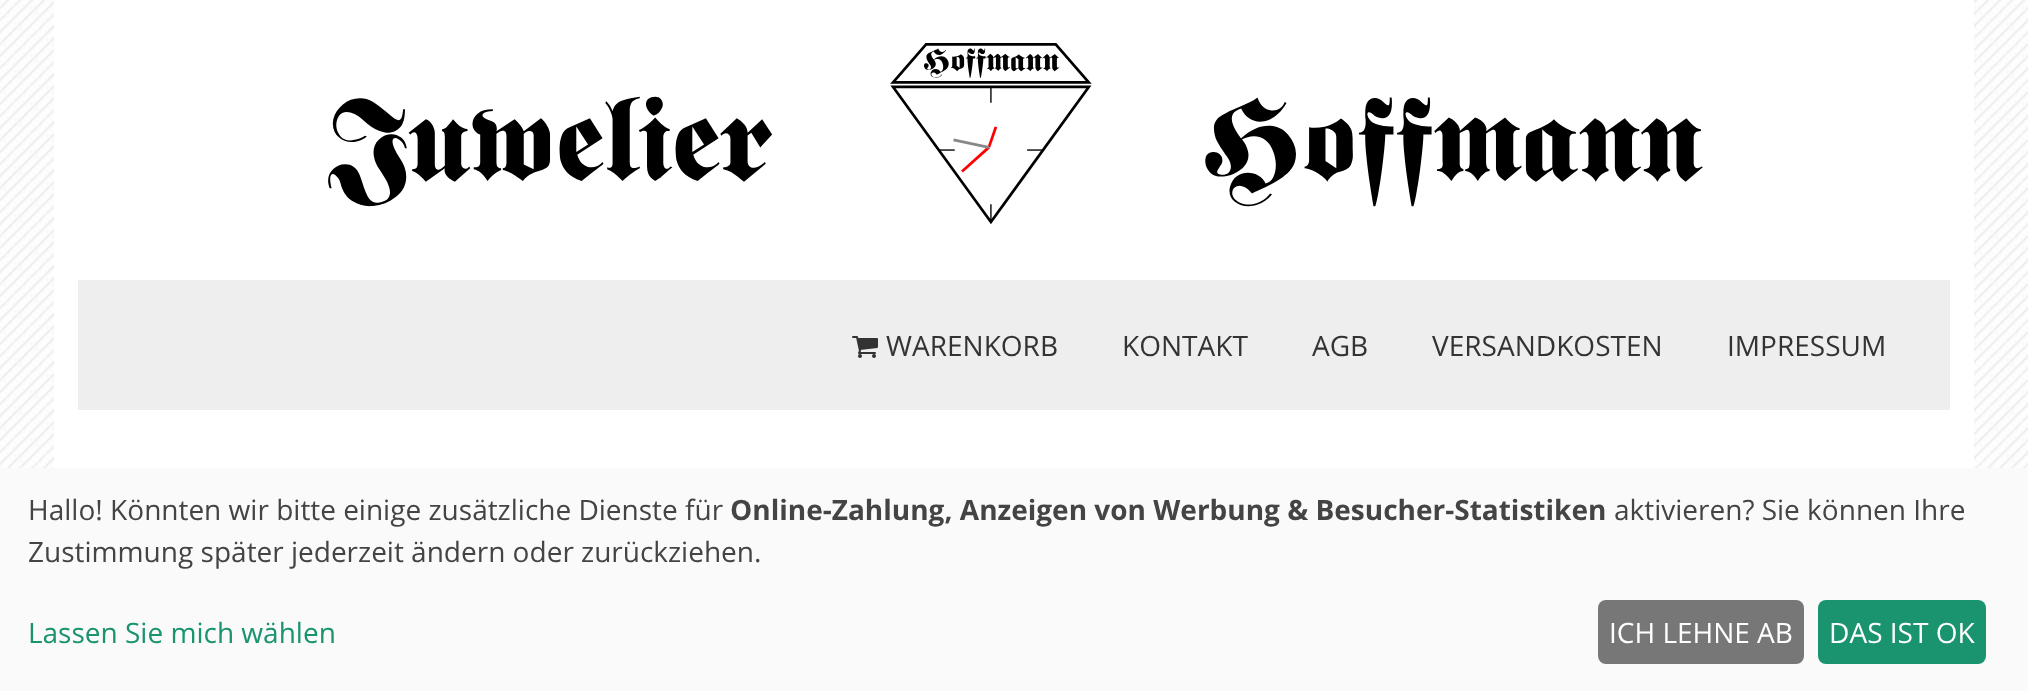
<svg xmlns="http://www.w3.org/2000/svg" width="2028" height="691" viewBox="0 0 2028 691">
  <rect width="100%" height="100%" fill="#ffffff"/>
  <image x="0" y="0" width="2028" height="468" href="img1.png"/>
  <rect x="54" y="0" width="1920" height="468" fill="#ffffff"/>
  <image x="328" y="43" width="1375" height="182" href="img2.png"/>
  <rect x="78" y="280" width="1872" height="130" fill="#eeeeee"/>
  <image x="852" y="336" width="26" height="22" href="img3.png"/>
  <text x="886" y="356" font-family="Open Sans" font-size="28" fill="#333333">WARENKORB</text>
  <text x="1122" y="356" font-family="Open Sans" font-size="28" fill="#333333">KONTAKT</text>
  <text x="1312" y="356" font-family="Open Sans" font-size="28" fill="#333333">AGB</text>
  <text x="1432" y="356" font-family="Open Sans" font-size="28" fill="#333333">VERSANDKOSTEN</text>
  <text x="1727" y="356" font-family="Open Sans" font-size="28" fill="#333333">IMPRESSUM</text>
  <rect x="0" y="468" width="2028" height="223" fill="#fafafa"/>
  <text x="28" y="520" font-family="Open Sans" font-size="28" fill="#444444">Hallo! Könnten wir bitte einige zusätzliche Dienste für</text>
  <text x="730" y="520" font-family="Open Sans" font-size="28" font-weight="bold" fill="#444444">Online-Zahlung, Anzeigen von Werbung &amp; Besucher-Statistiken</text>
  <text x="1614" y="520" font-family="Open Sans" font-size="28" fill="#444444">aktivieren? Sie können Ihre</text>
  <text x="28" y="562" font-family="Open Sans" font-size="28" fill="#444444">Zustimmung später jederzeit ändern oder zurückziehen.</text>
  <text x="28" y="643" font-family="Open Sans" font-size="28" fill="#1a936f">Lassen Sie mich wählen</text>
  <rect x="1598" y="600" width="206" height="64" rx="8" fill="#777777"/>
  <text x="1609" y="643" font-family="Open Sans" font-size="28" fill="#ffffff">ICH LEHNE AB</text>
  <rect x="1818" y="600" width="168" height="64" rx="8" fill="#1a936f"/>
  <text x="1829" y="643" font-family="Open Sans" font-size="28" fill="#ffffff">DAS IST OK</text>
</svg>
